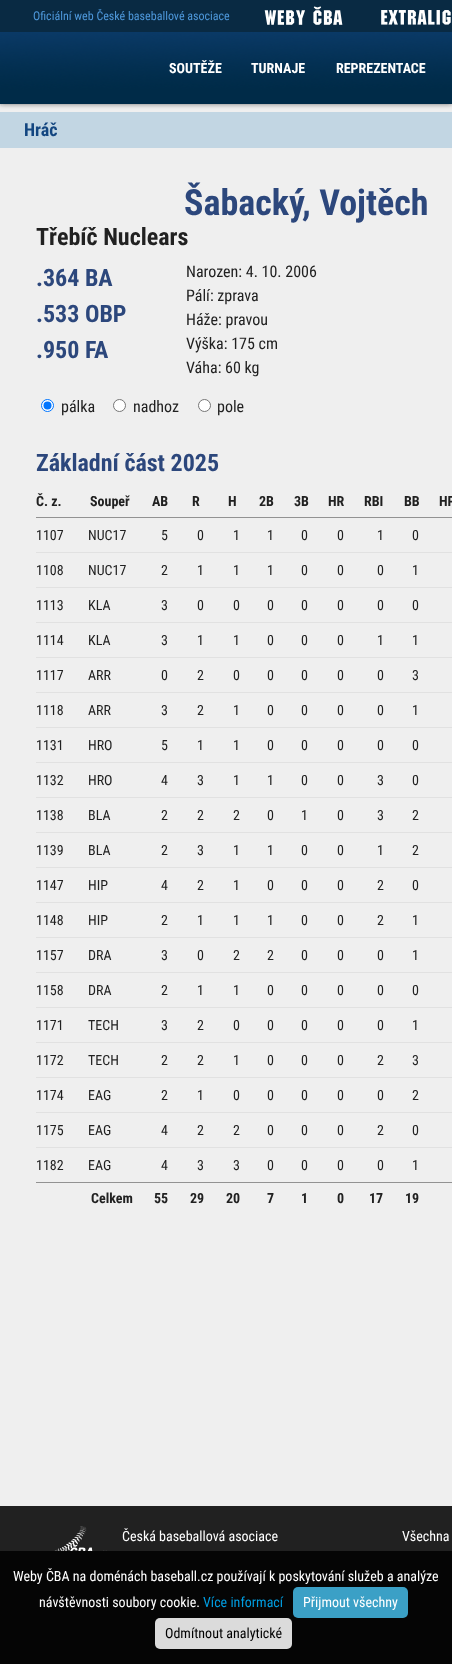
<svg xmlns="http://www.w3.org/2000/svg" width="452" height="1664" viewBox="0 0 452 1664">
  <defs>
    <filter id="blur1" x="-50%" y="-200%" width="200%" height="500%"><feGaussianBlur stdDeviation="2.5"/></filter>
  </defs>
  <rect width="100%" height="100%" fill="#efefef"/>
  <rect x="0" y="112" width="452" height="36" fill="#c2d6e3"/>
  <rect x="0" y="32" width="452" height="72" fill="#1d1d1b" fill-opacity="0.63" filter="url(#blur1)"/>
  <rect x="0" y="0" width="452" height="32" fill="#092a43"/>
  <text x="33" y="20" font-family="Roboto Condensed" font-size="12" fill="#4e98db">Oficiální web České baseballové asociace</text>
  <image x="264" y="6" width="79" height="19" href="img1.png"/>
  <image x="381" y="10" width="70" height="15" href="img2.png"/>
  <image x="0" y="32" width="452" height="72" href="img3.png"/>
  <text x="169" y="73" font-family="Roboto Condensed" font-size="14" font-weight="bold" fill="#ffffff">SOUTĚŽE</text>
  <text x="251" y="73" font-family="Roboto Condensed" font-size="14" font-weight="bold" fill="#ffffff">TURNAJE</text>
  <text x="336" y="73" font-family="Roboto Condensed" font-size="14" font-weight="bold" fill="#ffffff">REPREZENTACE</text>
  <text x="24" y="136" font-family="Roboto Condensed" font-size="18" font-weight="bold" fill="#134680">Hráč</text>
  <text x="184" y="215" font-family="Roboto Condensed" font-size="36" font-weight="bold" fill="#2c477c">Šabacký, Vojtěch</text>
  <text x="36" y="245" font-family="Roboto Condensed" font-size="24" font-weight="bold" fill="#212121">Třebíč Nuclears</text>
  <text x="36" y="286" font-family="Roboto Condensed" font-size="24" font-weight="bold" fill="#2c477c">.364 BA</text>
  <text x="36" y="322" font-family="Roboto Condensed" font-size="24" font-weight="bold" fill="#2c477c">.533 OBP</text>
  <text x="36" y="358" font-family="Roboto Condensed" font-size="24" font-weight="bold" fill="#2c477c">.950 FA</text>
  <text x="186" y="277" font-family="Roboto Condensed" font-size="16" fill="#212121">Narozen: 4. 10. 2006</text>
  <text x="186" y="301" font-family="Roboto Condensed" font-size="16" fill="#212121">Pálí: zprava</text>
  <text x="186" y="325" font-family="Roboto Condensed" font-size="16" fill="#212121">Háže: pravou</text>
  <text x="186" y="349" font-family="Roboto Condensed" font-size="16" fill="#212121">Výška: 175 cm</text>
  <text x="186" y="373" font-family="Roboto Condensed" font-size="16" fill="#212121">Váha: 60 kg</text>
  <circle cx="47.5" cy="405.5" r="6" fill="#ffffff" stroke="#0075ff"/>
  <circle cx="47.5" cy="405.5" r="4" fill="#0075ff"/>
  <text x="61" y="412" font-family="Roboto Condensed" font-size="16" fill="#212121">pálka</text>
  <circle cx="119.5" cy="405.5" r="6" fill="#ffffff" stroke="#767676"/>
  <text x="133" y="412" font-family="Roboto Condensed" font-size="16" fill="#212121">nadhoz</text>
  <circle cx="204.5" cy="405.5" r="6" fill="#ffffff" stroke="#767676"/>
  <text x="217" y="412" font-family="Roboto Condensed" font-size="16" fill="#212121">pole</text>
  <text x="36" y="471" font-family="Roboto Condensed" font-size="24" font-weight="bold" fill="#2c477c">Základní část 2025</text>
  <rect x="36" y="517" width="416" height="1" fill="#929292"/>
  <text x="36" y="506" font-family="Roboto Condensed" font-size="14" font-weight="bold" fill="#212121">Č. z.</text>
  <text x="90" y="506" font-family="Roboto Condensed" font-size="14" font-weight="bold" fill="#212121">Soupeř</text>
  <text x="152" y="506" font-family="Roboto Condensed" font-size="14" font-weight="bold" fill="#212121">AB</text>
  <text x="192" y="506" font-family="Roboto Condensed" font-size="14" font-weight="bold" fill="#212121">R</text>
  <text x="228" y="506" font-family="Roboto Condensed" font-size="14" font-weight="bold" fill="#212121">H</text>
  <text x="259" y="506" font-family="Roboto Condensed" font-size="14" font-weight="bold" fill="#212121">2B</text>
  <text x="294" y="506" font-family="Roboto Condensed" font-size="14" font-weight="bold" fill="#212121">3B</text>
  <text x="328" y="506" font-family="Roboto Condensed" font-size="14" font-weight="bold" fill="#212121">HR</text>
  <text x="364" y="506" font-family="Roboto Condensed" font-size="14" font-weight="bold" fill="#212121">RBI</text>
  <text x="404" y="506" font-family="Roboto Condensed" font-size="14" font-weight="bold" fill="#212121">BB</text>
  <text x="439" y="506" font-family="Roboto Condensed" font-size="14" font-weight="bold" fill="#212121">HP</text>
  <rect x="36" y="552" width="416" height="1" fill="#e1e1e1"/>
  <text x="36" y="540" font-family="Roboto Condensed" font-size="14" fill="#212121">1107</text>
  <text x="88" y="540" font-family="Roboto Condensed" font-size="14" fill="#212121">NUC17</text>
  <text x="161" y="540" font-family="Roboto Condensed" font-size="14" fill="#212121">5</text>
  <text x="197" y="540" font-family="Roboto Condensed" font-size="14" fill="#212121">0</text>
  <text x="233" y="540" font-family="Roboto Condensed" font-size="14" fill="#212121">1</text>
  <text x="267" y="540" font-family="Roboto Condensed" font-size="14" fill="#212121">1</text>
  <text x="301" y="540" font-family="Roboto Condensed" font-size="14" fill="#212121">0</text>
  <text x="337" y="540" font-family="Roboto Condensed" font-size="14" fill="#212121">0</text>
  <text x="377" y="540" font-family="Roboto Condensed" font-size="14" fill="#212121">1</text>
  <text x="412" y="540" font-family="Roboto Condensed" font-size="14" fill="#212121">0</text>
  <rect x="36" y="587" width="416" height="1" fill="#e1e1e1"/>
  <text x="36" y="575" font-family="Roboto Condensed" font-size="14" fill="#212121">1108</text>
  <text x="88" y="575" font-family="Roboto Condensed" font-size="14" fill="#212121">NUC17</text>
  <text x="161" y="575" font-family="Roboto Condensed" font-size="14" fill="#212121">2</text>
  <text x="197" y="575" font-family="Roboto Condensed" font-size="14" fill="#212121">1</text>
  <text x="233" y="575" font-family="Roboto Condensed" font-size="14" fill="#212121">1</text>
  <text x="267" y="575" font-family="Roboto Condensed" font-size="14" fill="#212121">1</text>
  <text x="301" y="575" font-family="Roboto Condensed" font-size="14" fill="#212121">0</text>
  <text x="337" y="575" font-family="Roboto Condensed" font-size="14" fill="#212121">0</text>
  <text x="377" y="575" font-family="Roboto Condensed" font-size="14" fill="#212121">0</text>
  <text x="412" y="575" font-family="Roboto Condensed" font-size="14" fill="#212121">1</text>
  <rect x="36" y="622" width="416" height="1" fill="#e1e1e1"/>
  <text x="36" y="610" font-family="Roboto Condensed" font-size="14" fill="#212121">1113</text>
  <text x="88" y="610" font-family="Roboto Condensed" font-size="14" fill="#212121">KLA</text>
  <text x="161" y="610" font-family="Roboto Condensed" font-size="14" fill="#212121">3</text>
  <text x="197" y="610" font-family="Roboto Condensed" font-size="14" fill="#212121">0</text>
  <text x="233" y="610" font-family="Roboto Condensed" font-size="14" fill="#212121">0</text>
  <text x="267" y="610" font-family="Roboto Condensed" font-size="14" fill="#212121">0</text>
  <text x="301" y="610" font-family="Roboto Condensed" font-size="14" fill="#212121">0</text>
  <text x="337" y="610" font-family="Roboto Condensed" font-size="14" fill="#212121">0</text>
  <text x="377" y="610" font-family="Roboto Condensed" font-size="14" fill="#212121">0</text>
  <text x="412" y="610" font-family="Roboto Condensed" font-size="14" fill="#212121">0</text>
  <rect x="36" y="657" width="416" height="1" fill="#e1e1e1"/>
  <text x="36" y="645" font-family="Roboto Condensed" font-size="14" fill="#212121">1114</text>
  <text x="88" y="645" font-family="Roboto Condensed" font-size="14" fill="#212121">KLA</text>
  <text x="161" y="645" font-family="Roboto Condensed" font-size="14" fill="#212121">3</text>
  <text x="197" y="645" font-family="Roboto Condensed" font-size="14" fill="#212121">1</text>
  <text x="233" y="645" font-family="Roboto Condensed" font-size="14" fill="#212121">1</text>
  <text x="267" y="645" font-family="Roboto Condensed" font-size="14" fill="#212121">0</text>
  <text x="301" y="645" font-family="Roboto Condensed" font-size="14" fill="#212121">0</text>
  <text x="337" y="645" font-family="Roboto Condensed" font-size="14" fill="#212121">0</text>
  <text x="377" y="645" font-family="Roboto Condensed" font-size="14" fill="#212121">1</text>
  <text x="412" y="645" font-family="Roboto Condensed" font-size="14" fill="#212121">1</text>
  <rect x="36" y="692" width="416" height="1" fill="#e1e1e1"/>
  <text x="36" y="680" font-family="Roboto Condensed" font-size="14" fill="#212121">1117</text>
  <text x="88" y="680" font-family="Roboto Condensed" font-size="14" fill="#212121">ARR</text>
  <text x="161" y="680" font-family="Roboto Condensed" font-size="14" fill="#212121">0</text>
  <text x="197" y="680" font-family="Roboto Condensed" font-size="14" fill="#212121">2</text>
  <text x="233" y="680" font-family="Roboto Condensed" font-size="14" fill="#212121">0</text>
  <text x="267" y="680" font-family="Roboto Condensed" font-size="14" fill="#212121">0</text>
  <text x="301" y="680" font-family="Roboto Condensed" font-size="14" fill="#212121">0</text>
  <text x="337" y="680" font-family="Roboto Condensed" font-size="14" fill="#212121">0</text>
  <text x="377" y="680" font-family="Roboto Condensed" font-size="14" fill="#212121">0</text>
  <text x="412" y="680" font-family="Roboto Condensed" font-size="14" fill="#212121">3</text>
  <rect x="36" y="727" width="416" height="1" fill="#e1e1e1"/>
  <text x="36" y="715" font-family="Roboto Condensed" font-size="14" fill="#212121">1118</text>
  <text x="88" y="715" font-family="Roboto Condensed" font-size="14" fill="#212121">ARR</text>
  <text x="161" y="715" font-family="Roboto Condensed" font-size="14" fill="#212121">3</text>
  <text x="197" y="715" font-family="Roboto Condensed" font-size="14" fill="#212121">2</text>
  <text x="233" y="715" font-family="Roboto Condensed" font-size="14" fill="#212121">1</text>
  <text x="267" y="715" font-family="Roboto Condensed" font-size="14" fill="#212121">0</text>
  <text x="301" y="715" font-family="Roboto Condensed" font-size="14" fill="#212121">0</text>
  <text x="337" y="715" font-family="Roboto Condensed" font-size="14" fill="#212121">0</text>
  <text x="377" y="715" font-family="Roboto Condensed" font-size="14" fill="#212121">0</text>
  <text x="412" y="715" font-family="Roboto Condensed" font-size="14" fill="#212121">1</text>
  <rect x="36" y="762" width="416" height="1" fill="#e1e1e1"/>
  <text x="36" y="750" font-family="Roboto Condensed" font-size="14" fill="#212121">1131</text>
  <text x="88" y="750" font-family="Roboto Condensed" font-size="14" fill="#212121">HRO</text>
  <text x="161" y="750" font-family="Roboto Condensed" font-size="14" fill="#212121">5</text>
  <text x="197" y="750" font-family="Roboto Condensed" font-size="14" fill="#212121">1</text>
  <text x="233" y="750" font-family="Roboto Condensed" font-size="14" fill="#212121">1</text>
  <text x="267" y="750" font-family="Roboto Condensed" font-size="14" fill="#212121">0</text>
  <text x="301" y="750" font-family="Roboto Condensed" font-size="14" fill="#212121">0</text>
  <text x="337" y="750" font-family="Roboto Condensed" font-size="14" fill="#212121">0</text>
  <text x="377" y="750" font-family="Roboto Condensed" font-size="14" fill="#212121">0</text>
  <text x="412" y="750" font-family="Roboto Condensed" font-size="14" fill="#212121">0</text>
  <rect x="36" y="797" width="416" height="1" fill="#e1e1e1"/>
  <text x="36" y="785" font-family="Roboto Condensed" font-size="14" fill="#212121">1132</text>
  <text x="88" y="785" font-family="Roboto Condensed" font-size="14" fill="#212121">HRO</text>
  <text x="161" y="785" font-family="Roboto Condensed" font-size="14" fill="#212121">4</text>
  <text x="197" y="785" font-family="Roboto Condensed" font-size="14" fill="#212121">3</text>
  <text x="233" y="785" font-family="Roboto Condensed" font-size="14" fill="#212121">1</text>
  <text x="267" y="785" font-family="Roboto Condensed" font-size="14" fill="#212121">1</text>
  <text x="301" y="785" font-family="Roboto Condensed" font-size="14" fill="#212121">0</text>
  <text x="337" y="785" font-family="Roboto Condensed" font-size="14" fill="#212121">0</text>
  <text x="377" y="785" font-family="Roboto Condensed" font-size="14" fill="#212121">3</text>
  <text x="412" y="785" font-family="Roboto Condensed" font-size="14" fill="#212121">0</text>
  <rect x="36" y="832" width="416" height="1" fill="#e1e1e1"/>
  <text x="36" y="820" font-family="Roboto Condensed" font-size="14" fill="#212121">1138</text>
  <text x="88" y="820" font-family="Roboto Condensed" font-size="14" fill="#212121">BLA</text>
  <text x="161" y="820" font-family="Roboto Condensed" font-size="14" fill="#212121">2</text>
  <text x="197" y="820" font-family="Roboto Condensed" font-size="14" fill="#212121">2</text>
  <text x="233" y="820" font-family="Roboto Condensed" font-size="14" fill="#212121">2</text>
  <text x="267" y="820" font-family="Roboto Condensed" font-size="14" fill="#212121">0</text>
  <text x="301" y="820" font-family="Roboto Condensed" font-size="14" fill="#212121">1</text>
  <text x="337" y="820" font-family="Roboto Condensed" font-size="14" fill="#212121">0</text>
  <text x="377" y="820" font-family="Roboto Condensed" font-size="14" fill="#212121">3</text>
  <text x="412" y="820" font-family="Roboto Condensed" font-size="14" fill="#212121">2</text>
  <rect x="36" y="867" width="416" height="1" fill="#e1e1e1"/>
  <text x="36" y="855" font-family="Roboto Condensed" font-size="14" fill="#212121">1139</text>
  <text x="88" y="855" font-family="Roboto Condensed" font-size="14" fill="#212121">BLA</text>
  <text x="161" y="855" font-family="Roboto Condensed" font-size="14" fill="#212121">2</text>
  <text x="197" y="855" font-family="Roboto Condensed" font-size="14" fill="#212121">3</text>
  <text x="233" y="855" font-family="Roboto Condensed" font-size="14" fill="#212121">1</text>
  <text x="267" y="855" font-family="Roboto Condensed" font-size="14" fill="#212121">1</text>
  <text x="301" y="855" font-family="Roboto Condensed" font-size="14" fill="#212121">0</text>
  <text x="337" y="855" font-family="Roboto Condensed" font-size="14" fill="#212121">0</text>
  <text x="377" y="855" font-family="Roboto Condensed" font-size="14" fill="#212121">1</text>
  <text x="412" y="855" font-family="Roboto Condensed" font-size="14" fill="#212121">2</text>
  <rect x="36" y="902" width="416" height="1" fill="#e1e1e1"/>
  <text x="36" y="890" font-family="Roboto Condensed" font-size="14" fill="#212121">1147</text>
  <text x="88" y="890" font-family="Roboto Condensed" font-size="14" fill="#212121">HIP</text>
  <text x="161" y="890" font-family="Roboto Condensed" font-size="14" fill="#212121">4</text>
  <text x="197" y="890" font-family="Roboto Condensed" font-size="14" fill="#212121">2</text>
  <text x="233" y="890" font-family="Roboto Condensed" font-size="14" fill="#212121">1</text>
  <text x="267" y="890" font-family="Roboto Condensed" font-size="14" fill="#212121">0</text>
  <text x="301" y="890" font-family="Roboto Condensed" font-size="14" fill="#212121">0</text>
  <text x="337" y="890" font-family="Roboto Condensed" font-size="14" fill="#212121">0</text>
  <text x="377" y="890" font-family="Roboto Condensed" font-size="14" fill="#212121">2</text>
  <text x="412" y="890" font-family="Roboto Condensed" font-size="14" fill="#212121">0</text>
  <rect x="36" y="937" width="416" height="1" fill="#e1e1e1"/>
  <text x="36" y="925" font-family="Roboto Condensed" font-size="14" fill="#212121">1148</text>
  <text x="88" y="925" font-family="Roboto Condensed" font-size="14" fill="#212121">HIP</text>
  <text x="161" y="925" font-family="Roboto Condensed" font-size="14" fill="#212121">2</text>
  <text x="197" y="925" font-family="Roboto Condensed" font-size="14" fill="#212121">1</text>
  <text x="233" y="925" font-family="Roboto Condensed" font-size="14" fill="#212121">1</text>
  <text x="267" y="925" font-family="Roboto Condensed" font-size="14" fill="#212121">1</text>
  <text x="301" y="925" font-family="Roboto Condensed" font-size="14" fill="#212121">0</text>
  <text x="337" y="925" font-family="Roboto Condensed" font-size="14" fill="#212121">0</text>
  <text x="377" y="925" font-family="Roboto Condensed" font-size="14" fill="#212121">2</text>
  <text x="412" y="925" font-family="Roboto Condensed" font-size="14" fill="#212121">1</text>
  <rect x="36" y="972" width="416" height="1" fill="#e1e1e1"/>
  <text x="36" y="960" font-family="Roboto Condensed" font-size="14" fill="#212121">1157</text>
  <text x="88" y="960" font-family="Roboto Condensed" font-size="14" fill="#212121">DRA</text>
  <text x="161" y="960" font-family="Roboto Condensed" font-size="14" fill="#212121">3</text>
  <text x="197" y="960" font-family="Roboto Condensed" font-size="14" fill="#212121">0</text>
  <text x="233" y="960" font-family="Roboto Condensed" font-size="14" fill="#212121">2</text>
  <text x="267" y="960" font-family="Roboto Condensed" font-size="14" fill="#212121">2</text>
  <text x="301" y="960" font-family="Roboto Condensed" font-size="14" fill="#212121">0</text>
  <text x="337" y="960" font-family="Roboto Condensed" font-size="14" fill="#212121">0</text>
  <text x="377" y="960" font-family="Roboto Condensed" font-size="14" fill="#212121">0</text>
  <text x="412" y="960" font-family="Roboto Condensed" font-size="14" fill="#212121">1</text>
  <rect x="36" y="1007" width="416" height="1" fill="#e1e1e1"/>
  <text x="36" y="995" font-family="Roboto Condensed" font-size="14" fill="#212121">1158</text>
  <text x="88" y="995" font-family="Roboto Condensed" font-size="14" fill="#212121">DRA</text>
  <text x="161" y="995" font-family="Roboto Condensed" font-size="14" fill="#212121">2</text>
  <text x="197" y="995" font-family="Roboto Condensed" font-size="14" fill="#212121">1</text>
  <text x="233" y="995" font-family="Roboto Condensed" font-size="14" fill="#212121">1</text>
  <text x="267" y="995" font-family="Roboto Condensed" font-size="14" fill="#212121">0</text>
  <text x="301" y="995" font-family="Roboto Condensed" font-size="14" fill="#212121">0</text>
  <text x="337" y="995" font-family="Roboto Condensed" font-size="14" fill="#212121">0</text>
  <text x="377" y="995" font-family="Roboto Condensed" font-size="14" fill="#212121">0</text>
  <text x="412" y="995" font-family="Roboto Condensed" font-size="14" fill="#212121">0</text>
  <rect x="36" y="1042" width="416" height="1" fill="#e1e1e1"/>
  <text x="36" y="1030" font-family="Roboto Condensed" font-size="14" fill="#212121">1171</text>
  <text x="88" y="1030" font-family="Roboto Condensed" font-size="14" fill="#212121">TECH</text>
  <text x="161" y="1030" font-family="Roboto Condensed" font-size="14" fill="#212121">3</text>
  <text x="197" y="1030" font-family="Roboto Condensed" font-size="14" fill="#212121">2</text>
  <text x="233" y="1030" font-family="Roboto Condensed" font-size="14" fill="#212121">0</text>
  <text x="267" y="1030" font-family="Roboto Condensed" font-size="14" fill="#212121">0</text>
  <text x="301" y="1030" font-family="Roboto Condensed" font-size="14" fill="#212121">0</text>
  <text x="337" y="1030" font-family="Roboto Condensed" font-size="14" fill="#212121">0</text>
  <text x="377" y="1030" font-family="Roboto Condensed" font-size="14" fill="#212121">0</text>
  <text x="412" y="1030" font-family="Roboto Condensed" font-size="14" fill="#212121">1</text>
  <rect x="36" y="1077" width="416" height="1" fill="#e1e1e1"/>
  <text x="36" y="1065" font-family="Roboto Condensed" font-size="14" fill="#212121">1172</text>
  <text x="88" y="1065" font-family="Roboto Condensed" font-size="14" fill="#212121">TECH</text>
  <text x="161" y="1065" font-family="Roboto Condensed" font-size="14" fill="#212121">2</text>
  <text x="197" y="1065" font-family="Roboto Condensed" font-size="14" fill="#212121">2</text>
  <text x="233" y="1065" font-family="Roboto Condensed" font-size="14" fill="#212121">1</text>
  <text x="267" y="1065" font-family="Roboto Condensed" font-size="14" fill="#212121">0</text>
  <text x="301" y="1065" font-family="Roboto Condensed" font-size="14" fill="#212121">0</text>
  <text x="337" y="1065" font-family="Roboto Condensed" font-size="14" fill="#212121">0</text>
  <text x="377" y="1065" font-family="Roboto Condensed" font-size="14" fill="#212121">2</text>
  <text x="412" y="1065" font-family="Roboto Condensed" font-size="14" fill="#212121">3</text>
  <rect x="36" y="1112" width="416" height="1" fill="#e1e1e1"/>
  <text x="36" y="1100" font-family="Roboto Condensed" font-size="14" fill="#212121">1174</text>
  <text x="88" y="1100" font-family="Roboto Condensed" font-size="14" fill="#212121">EAG</text>
  <text x="161" y="1100" font-family="Roboto Condensed" font-size="14" fill="#212121">2</text>
  <text x="197" y="1100" font-family="Roboto Condensed" font-size="14" fill="#212121">1</text>
  <text x="233" y="1100" font-family="Roboto Condensed" font-size="14" fill="#212121">0</text>
  <text x="267" y="1100" font-family="Roboto Condensed" font-size="14" fill="#212121">0</text>
  <text x="301" y="1100" font-family="Roboto Condensed" font-size="14" fill="#212121">0</text>
  <text x="337" y="1100" font-family="Roboto Condensed" font-size="14" fill="#212121">0</text>
  <text x="377" y="1100" font-family="Roboto Condensed" font-size="14" fill="#212121">0</text>
  <text x="412" y="1100" font-family="Roboto Condensed" font-size="14" fill="#212121">2</text>
  <rect x="36" y="1147" width="416" height="1" fill="#e1e1e1"/>
  <text x="36" y="1135" font-family="Roboto Condensed" font-size="14" fill="#212121">1175</text>
  <text x="88" y="1135" font-family="Roboto Condensed" font-size="14" fill="#212121">EAG</text>
  <text x="161" y="1135" font-family="Roboto Condensed" font-size="14" fill="#212121">4</text>
  <text x="197" y="1135" font-family="Roboto Condensed" font-size="14" fill="#212121">2</text>
  <text x="233" y="1135" font-family="Roboto Condensed" font-size="14" fill="#212121">2</text>
  <text x="267" y="1135" font-family="Roboto Condensed" font-size="14" fill="#212121">0</text>
  <text x="301" y="1135" font-family="Roboto Condensed" font-size="14" fill="#212121">0</text>
  <text x="337" y="1135" font-family="Roboto Condensed" font-size="14" fill="#212121">0</text>
  <text x="377" y="1135" font-family="Roboto Condensed" font-size="14" fill="#212121">2</text>
  <text x="412" y="1135" font-family="Roboto Condensed" font-size="14" fill="#212121">0</text>
  <rect x="36" y="1182" width="416" height="1" fill="#929292"/>
  <text x="36" y="1170" font-family="Roboto Condensed" font-size="14" fill="#212121">1182</text>
  <text x="88" y="1170" font-family="Roboto Condensed" font-size="14" fill="#212121">EAG</text>
  <text x="161" y="1170" font-family="Roboto Condensed" font-size="14" fill="#212121">4</text>
  <text x="197" y="1170" font-family="Roboto Condensed" font-size="14" fill="#212121">3</text>
  <text x="233" y="1170" font-family="Roboto Condensed" font-size="14" fill="#212121">3</text>
  <text x="267" y="1170" font-family="Roboto Condensed" font-size="14" fill="#212121">0</text>
  <text x="301" y="1170" font-family="Roboto Condensed" font-size="14" fill="#212121">0</text>
  <text x="337" y="1170" font-family="Roboto Condensed" font-size="14" fill="#212121">0</text>
  <text x="377" y="1170" font-family="Roboto Condensed" font-size="14" fill="#212121">0</text>
  <text x="412" y="1170" font-family="Roboto Condensed" font-size="14" fill="#212121">1</text>
  <text x="91" y="1203" font-family="Roboto Condensed" font-size="14" font-weight="bold" fill="#212121">Celkem</text>
  <text x="154" y="1203" font-family="Roboto Condensed" font-size="14" font-weight="bold" fill="#212121">55</text>
  <text x="190" y="1203" font-family="Roboto Condensed" font-size="14" font-weight="bold" fill="#212121">29</text>
  <text x="226" y="1203" font-family="Roboto Condensed" font-size="14" font-weight="bold" fill="#212121">20</text>
  <text x="267" y="1203" font-family="Roboto Condensed" font-size="14" font-weight="bold" fill="#212121">7</text>
  <text x="301" y="1203" font-family="Roboto Condensed" font-size="14" font-weight="bold" fill="#212121">1</text>
  <text x="337" y="1203" font-family="Roboto Condensed" font-size="14" font-weight="bold" fill="#212121">0</text>
  <text x="369" y="1203" font-family="Roboto Condensed" font-size="14" font-weight="bold" fill="#212121">17</text>
  <text x="405" y="1203" font-family="Roboto Condensed" font-size="14" font-weight="bold" fill="#212121">19</text>
  <rect x="0" y="1506" width="452" height="45" fill="#212121"/>
  <image x="54" y="1526" width="53" height="25" href="img4.png"/>
  <text x="122" y="1541" font-family="Roboto Condensed" font-size="14" fill="#ffffff">Česká baseballová asociace</text>
  <text x="402" y="1541" font-family="Roboto Condensed" font-size="14" fill="#ffffff">Všechna</text>
  <rect x="0" y="1551" width="452" height="113" fill="#050505"/>
  <text x="13" y="1581" font-family="Roboto Condensed" font-size="14" fill="#ffffff">Weby ČBA na doménách baseball.cz používají k poskytování služeb a analýze</text>
  <text x="39" y="1607" font-family="Roboto Condensed" font-size="14" fill="#ffffff">návštěvnosti soubory cookie.</text>
  <text x="203" y="1607" font-family="Roboto Condensed" font-size="14" fill="#009de1">Více informací</text>
  <rect x="293" y="1587" width="115" height="31" rx="5" fill="#3ba0c6"/>
  <text x="303" y="1607" font-family="Roboto Condensed" font-size="14" fill="#ffffff">Přijmout všechny</text>
  <rect x="155" y="1618" width="137" height="31" rx="5" fill="#dbdbdb"/>
  <text x="165" y="1638" font-family="Roboto Condensed" font-size="14" fill="#000000">Odmítnout analytické</text>
</svg>
